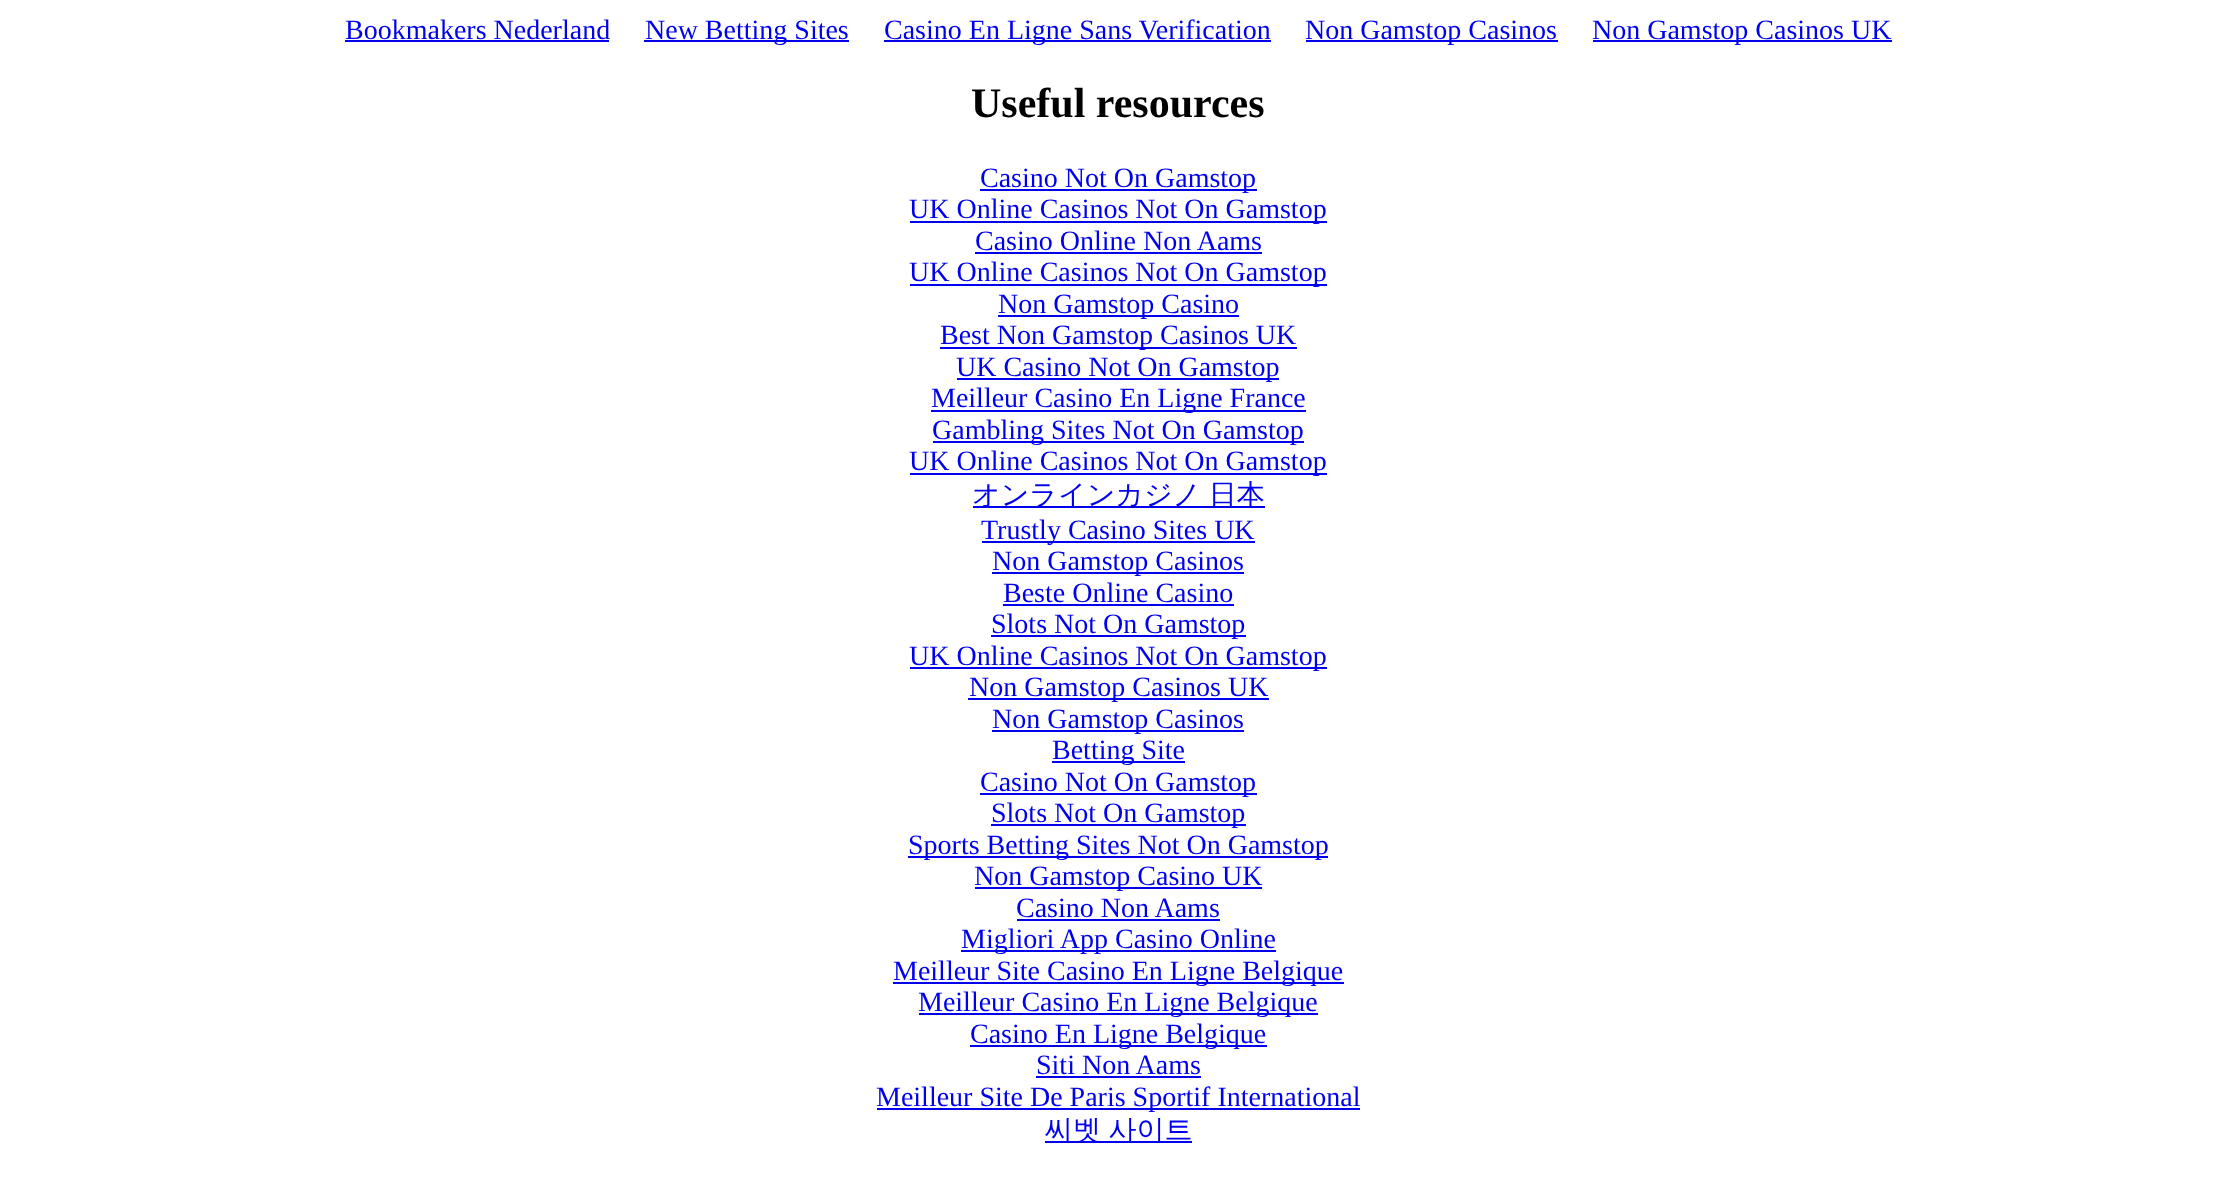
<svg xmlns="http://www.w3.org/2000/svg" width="2235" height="1189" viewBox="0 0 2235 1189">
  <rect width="100%" height="100%" fill="#ffffff"/>
  <text x="345" y="39" font-family="Liberation Serif" font-size="28" fill="#0000ee">Bookmakers Nederland</text>
  <rect x="345" y="40" width="264" height="2" fill="#0000ee"/>
  <rect x="644" y="40" width="205" height="2" fill="#0000ee"/>
  <text x="645" y="39" font-family="Liberation Serif" font-size="28" fill="#0000ee">New Betting Sites</text>
  <rect x="884" y="40" width="387" height="2" fill="#0000ee"/>
  <text x="884" y="39" font-family="Liberation Serif" font-size="28" fill="#0000ee">Casino En Ligne Sans Verification</text>
  <rect x="1306" y="40" width="252" height="2" fill="#0000ee"/>
  <text x="1305" y="39" font-family="Liberation Serif" font-size="28" fill="#0000ee">Non Gamstop Casinos</text>
  <rect x="1593" y="40" width="299" height="2" fill="#0000ee"/>
  <text x="1592" y="39" font-family="Liberation Serif" font-size="28" fill="#0000ee">Non Gamstop Casinos UK</text>
  <text x="971" y="117" font-family="Liberation Serif" font-size="42" font-weight="bold" fill="#000000">Useful resources</text>
  <rect x="980" y="189" width="277" height="2" fill="#0000ee"/>
  <text x="980" y="187" font-family="Liberation Serif" font-size="28" fill="#0000ee">Casino Not On Gamstop</text>
  <rect x="910" y="221" width="417" height="2" fill="#0000ee"/>
  <text x="909" y="218" font-family="Liberation Serif" font-size="28" fill="#0000ee">UK Online Casinos Not On Gamstop</text>
  <text x="975" y="250" font-family="Liberation Serif" font-size="28" fill="#0000ee">Casino Online Non Aams</text>
  <rect x="975" y="252" width="287" height="2" fill="#0000ee"/>
  <rect x="910" y="284" width="417" height="2" fill="#0000ee"/>
  <text x="909" y="281" font-family="Liberation Serif" font-size="28" fill="#0000ee">UK Online Casinos Not On Gamstop</text>
  <rect x="998" y="315" width="241" height="2" fill="#0000ee"/>
  <text x="998" y="313" font-family="Liberation Serif" font-size="28" fill="#0000ee">Non Gamstop Casino</text>
  <rect x="940" y="347" width="357" height="2" fill="#0000ee"/>
  <text x="940" y="344" font-family="Liberation Serif" font-size="28" fill="#0000ee">Best Non Gamstop Casinos UK</text>
  <rect x="957" y="378" width="322" height="2" fill="#0000ee"/>
  <text x="956" y="376" font-family="Liberation Serif" font-size="28" fill="#0000ee">UK Casino Not On Gamstop</text>
  <rect x="931" y="410" width="375" height="2" fill="#0000ee"/>
  <text x="931" y="407" font-family="Liberation Serif" font-size="28" fill="#0000ee">Meilleur Casino En Ligne France</text>
  <rect x="933" y="441" width="371" height="2" fill="#0000ee"/>
  <text x="932" y="439" font-family="Liberation Serif" font-size="28" fill="#0000ee">Gambling Sites Not On Gamstop</text>
  <rect x="910" y="473" width="417" height="2" fill="#0000ee"/>
  <text x="909" y="470" font-family="Liberation Serif" font-size="28" fill="#0000ee">UK Online Casinos Not On Gamstop</text>
  <rect x="973" y="506" width="292" height="2" fill="#0000ee"/>
  <text x="972" y="504" word-spacing="-1" font-family="WenQuanYi Zen Hei" font-size="28" font-weight="500" fill="#0000ee">オンラインカジノ 日本</text>
  <rect x="982" y="541" width="273" height="2" fill="#0000ee"/>
  <text x="981" y="539" font-family="Liberation Serif" font-size="28" fill="#0000ee">Trustly Casino Sites UK</text>
  <rect x="992" y="572" width="252" height="2" fill="#0000ee"/>
  <text x="992" y="570" font-family="Liberation Serif" font-size="28" fill="#0000ee">Non Gamstop Casinos</text>
  <text x="1003" y="602" font-family="Liberation Serif" font-size="28" fill="#0000ee">Beste Online Casino</text>
  <rect x="1003" y="604" width="231" height="2" fill="#0000ee"/>
  <rect x="991" y="635" width="255" height="2" fill="#0000ee"/>
  <text x="991" y="633" font-family="Liberation Serif" font-size="28" fill="#0000ee">Slots Not On Gamstop</text>
  <rect x="910" y="667" width="417" height="2" fill="#0000ee"/>
  <text x="909" y="665" font-family="Liberation Serif" font-size="28" fill="#0000ee">UK Online Casinos Not On Gamstop</text>
  <rect x="968" y="698" width="301" height="2" fill="#0000ee"/>
  <text x="969" y="696" font-family="Liberation Serif" font-size="28" fill="#0000ee">Non Gamstop Casinos UK</text>
  <rect x="992" y="730" width="252" height="2" fill="#0000ee"/>
  <text x="992" y="728" font-family="Liberation Serif" font-size="28" fill="#0000ee">Non Gamstop Casinos</text>
  <rect x="1052" y="761" width="133" height="2" fill="#0000ee"/>
  <text x="1052" y="759" font-family="Liberation Serif" font-size="28" fill="#0000ee">Betting Site</text>
  <rect x="980" y="793" width="277" height="2" fill="#0000ee"/>
  <text x="980" y="791" font-family="Liberation Serif" font-size="28" fill="#0000ee">Casino Not On Gamstop</text>
  <rect x="991" y="824" width="255" height="2" fill="#0000ee"/>
  <text x="991" y="822" font-family="Liberation Serif" font-size="28" fill="#0000ee">Slots Not On Gamstop</text>
  <rect x="908" y="856" width="420" height="2" fill="#0000ee"/>
  <text x="908" y="854" font-family="Liberation Serif" font-size="28" fill="#0000ee">Sports Betting Sites Not On Gamstop</text>
  <rect x="975" y="887" width="287" height="2" fill="#0000ee"/>
  <text x="974" y="885" font-family="Liberation Serif" font-size="28" fill="#0000ee">Non Gamstop Casino UK</text>
  <text x="1016" y="917" font-family="Liberation Serif" font-size="28" fill="#0000ee">Casino Non Aams</text>
  <rect x="1017" y="919" width="203" height="2" fill="#0000ee"/>
  <rect x="961" y="950" width="315" height="2" fill="#0000ee"/>
  <text x="961" y="948" font-family="Liberation Serif" font-size="28" fill="#0000ee">Migliori App Casino Online</text>
  <rect x="893" y="982" width="451" height="2" fill="#0000ee"/>
  <text x="893" y="980" font-family="Liberation Serif" font-size="28" fill="#0000ee">Meilleur Site Casino En Ligne Belgique</text>
  <rect x="919" y="1013" width="399" height="2" fill="#0000ee"/>
  <text x="918" y="1011" font-family="Liberation Serif" font-size="28" fill="#0000ee">Meilleur Casino En Ligne Belgique</text>
  <rect x="970" y="1045" width="297" height="2" fill="#0000ee"/>
  <text x="970" y="1043" font-family="Liberation Serif" font-size="28" fill="#0000ee">Casino En Ligne Belgique</text>
  <text x="1036" y="1074" font-family="Liberation Serif" font-size="28" fill="#0000ee">Siti Non Aams</text>
  <rect x="1036" y="1076" width="165" height="2" fill="#0000ee"/>
  <rect x="877" y="1108" width="483" height="2" fill="#0000ee"/>
  <text x="876" y="1106" font-family="Liberation Serif" font-size="28" fill="#0000ee">Meilleur Site De Paris Sportif International</text>
  <rect x="1045" y="1141" width="147" height="2" fill="#0000ee"/>
  <text x="1045" y="1139" word-spacing="-1" font-family="WenQuanYi Zen Hei" font-size="28" font-weight="500" fill="#0000ee">씨벳 사이트</text>
</svg>
